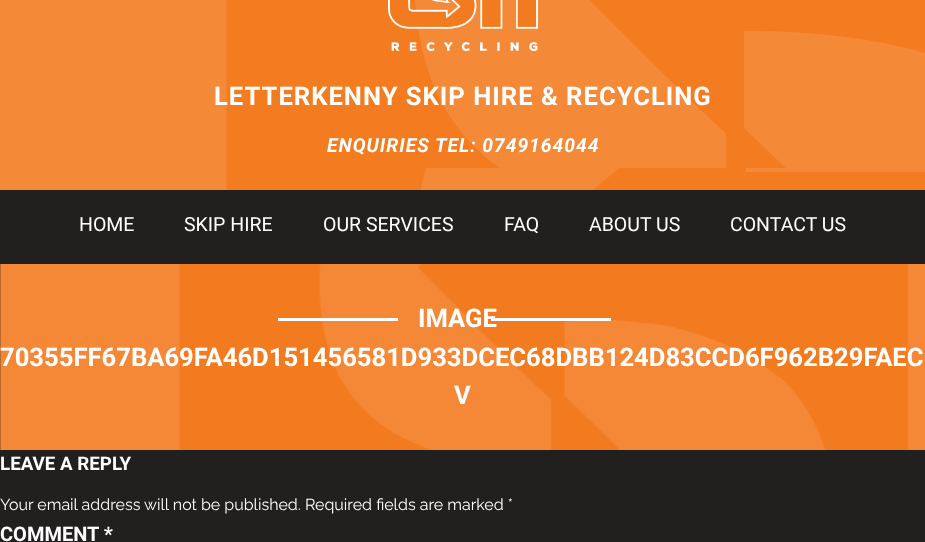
<svg xmlns="http://www.w3.org/2000/svg" width="925" height="542" viewBox="0 0 925 542">
  <rect width="100%" height="100%" fill="#221f1f"/>
  <image x="0" y="0" width="925" height="190" href="img1.png"/>
  <image x="388" y="0" width="150" height="51" href="img2.png"/>
  <text x="214" y="105" font-family="Roboto" font-size="25.6" font-weight="bold" letter-spacing="1" fill="#ffffff">LETTERKENNY SKIP HIRE &amp; RECYCLING</text>
  <text x="327" y="152" font-family="Roboto" font-size="19.25" font-weight="bold" font-style="italic" letter-spacing="1" fill="#ffffff">ENQUIRIES TEL: 0749164044</text>
  <text x="79" y="231" font-family="Roboto" font-size="19.5" fill="#ffffff">HOME</text>
  <text x="184" y="231" font-family="Roboto" font-size="19.5" fill="#ffffff">SKIP HIRE</text>
  <text x="323" y="231" font-family="Roboto" font-size="19.5" fill="#ffffff">OUR SERVICES</text>
  <text x="504" y="231" font-family="Roboto" font-size="19.5" fill="#ffffff">FAQ</text>
  <text x="589" y="231" font-family="Roboto" font-size="19.5" fill="#ffffff">ABOUT US</text>
  <text x="730" y="231" font-family="Roboto" font-size="19.5" fill="#ffffff">CONTACT US</text>
  <image x="0" y="264" width="925" height="186" href="img3.png"/>
  <rect x="278" y="318" width="120" height="3" fill="#ffffff"/>
  <text x="418" y="327" font-family="Roboto" font-size="25.6" font-weight="bold" fill="#ffffff">IMAGE</text>
  <rect x="491" y="318" width="120" height="3" fill="#ffffff"/>
  <text x="0" y="366" font-family="Roboto" font-size="25.6" font-weight="bold" fill="#ffffff">70355FF67BA69FA46D151456581D933DCEC68DBB124D83CCD6F962B29FAEC</text>
  <text x="454" y="404" font-family="Roboto" font-size="25.6" font-weight="bold" fill="#ffffff">V</text>
  <text x="0" y="470" font-family="Roboto" font-size="18.75" font-weight="bold" fill="#ffffff">LEAVE A REPLY</text>
  <text x="0" y="510" font-family="Raleway" font-size="16" fill="#ffffff">Your email address will not be published. Required fields are marked *</text>
  <text x="0" y="541" font-family="Roboto" font-size="20" font-weight="bold" fill="#ffffff">COMMENT *</text>
</svg>
